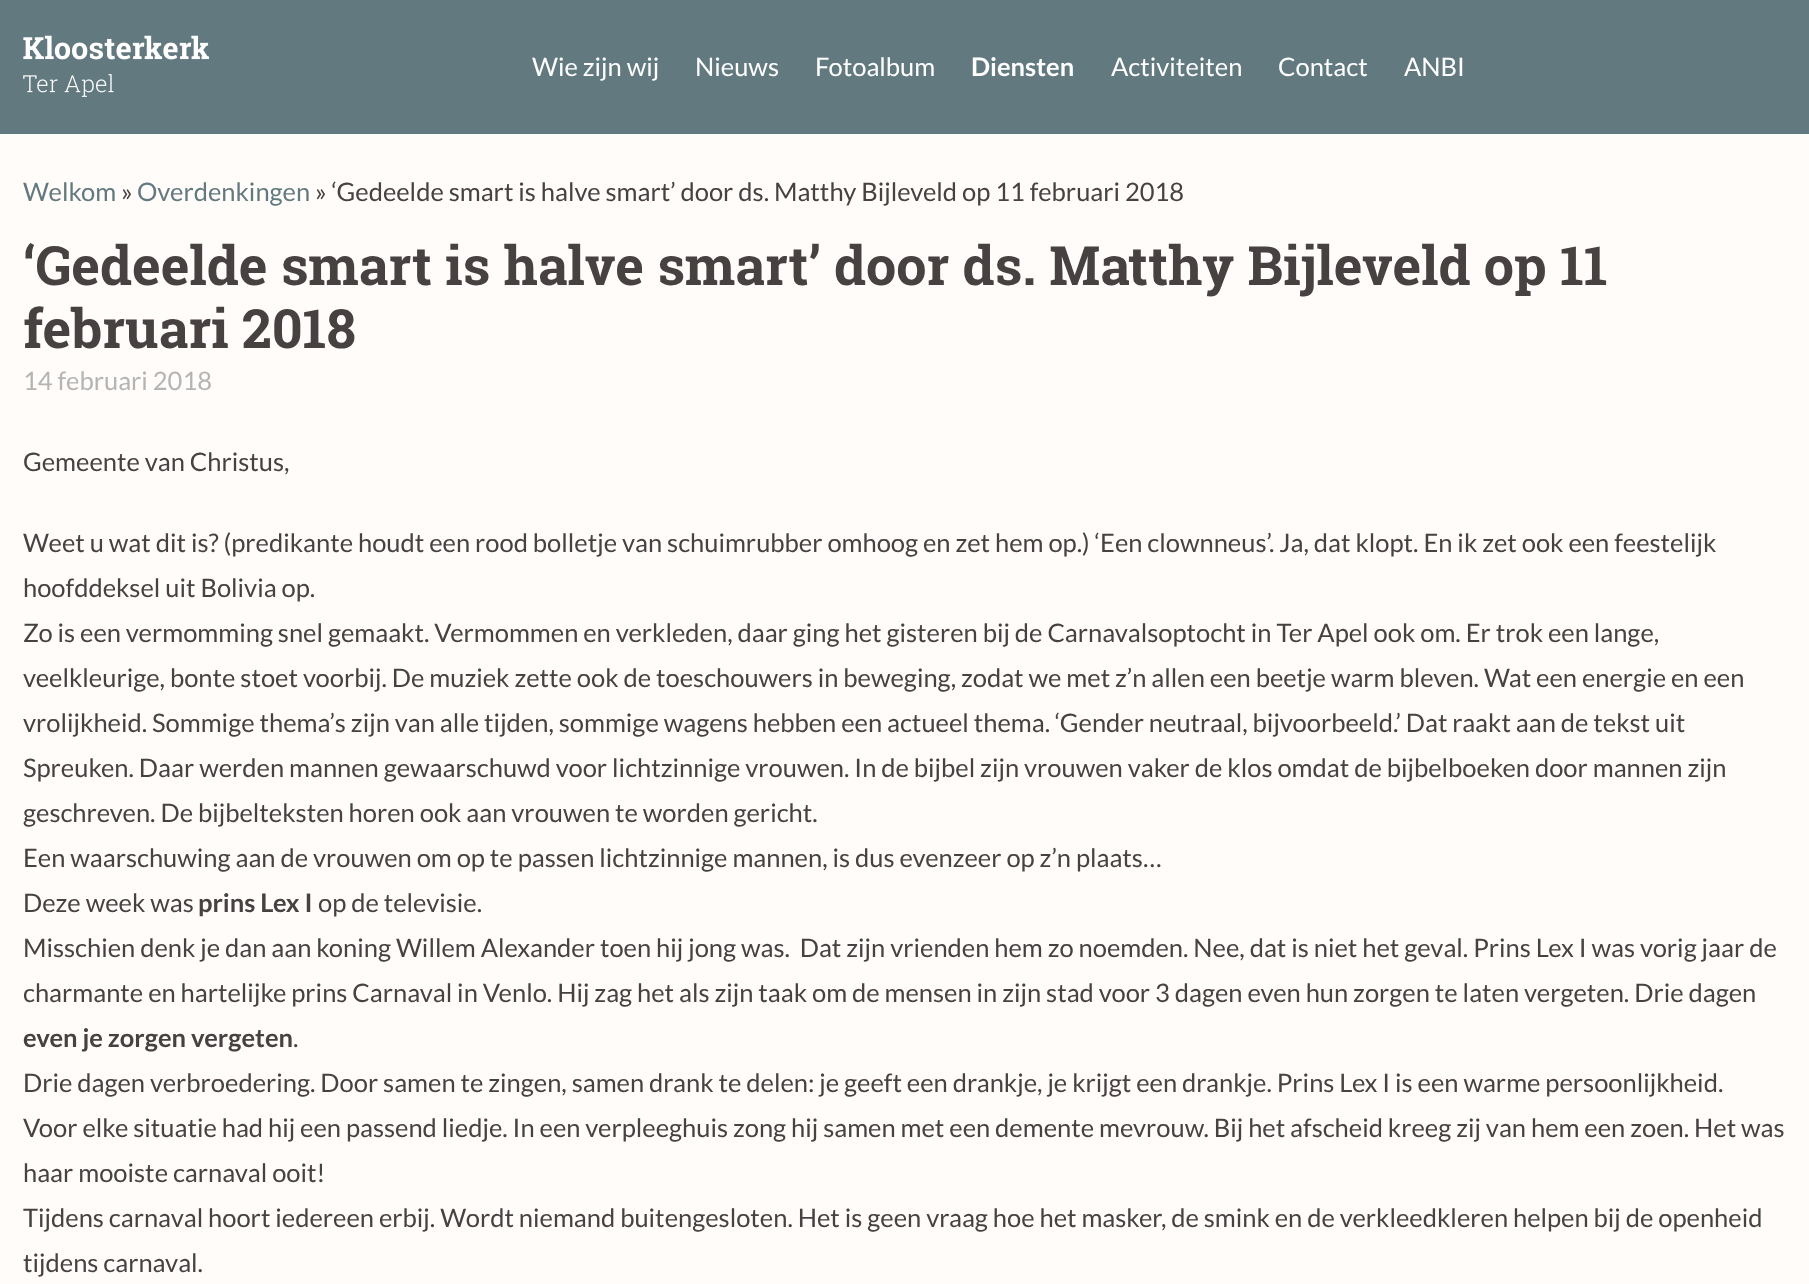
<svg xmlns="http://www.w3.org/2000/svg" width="1809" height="1284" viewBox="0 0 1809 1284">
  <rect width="100%" height="100%" fill="#62797f"/>
  <image x="23" y="35" width="186" height="62" href="img1.png"/>
  <text x="532" y="76" font-family="Lato" font-size="25.5" fill="#ffffff">Wie zijn wij</text>
  <text x="695" y="76" font-family="Lato" font-size="25.5" fill="#ffffff">Nieuws</text>
  <text x="815" y="76" font-family="Lato" font-size="25.5" fill="#ffffff">Fotoalbum</text>
  <text x="971" y="76" font-family="Lato" font-size="25.5" font-weight="bold" fill="#ffffff">Diensten</text>
  <text x="1111" y="76" font-family="Lato" font-size="25.5" fill="#ffffff">Activiteiten</text>
  <text x="1278" y="76" font-family="Lato" font-size="25.5" fill="#ffffff">Contact</text>
  <text x="1404" y="76" font-family="Lato" font-size="25.5" fill="#ffffff">ANBI</text>
  <rect x="0" y="134" width="1809" height="1150" fill="#fffcfa"/>
  <text x="23" y="201" font-family="Lato" font-size="25.5" fill="#62797f">Welkom</text>
  <text x="121" y="201" font-family="Lato" font-size="25.5" fill="#474141">»</text>
  <text x="137" y="201" font-family="Lato" font-size="25.5" fill="#62797f">Overdenkingen</text>
  <text x="315" y="201" font-family="Lato" font-size="25.5" fill="#474141">» ‘Gedeelde smart is halve smart’ door ds. Matthy Bijleveld op 11 februari 2018</text>
  <text x="23" y="285" font-family="Roboto Slab" font-size="54" font-weight="bold" fill="#474141">‘Gedeelde smart is halve smart’ door ds. Matthy Bijleveld op 11</text>
  <text x="23" y="348" font-family="Roboto Slab" font-size="54" font-weight="bold" fill="#474141">februari 2018</text>
  <text x="23" y="390" font-family="Lato" font-size="25.5" fill="#b4b4b4">14 februari 2018</text>
  <text x="23" y="471" font-family="Lato" font-size="25.5" fill="#474141">Gemeente van Christus,</text>
  <text x="23" y="552" font-family="Lato" font-size="25.5" fill="#474141">Weet u wat dit is? (predikante houdt een rood bolletje van schuimrubber omhoog en zet hem op.) ‘Een clownneus’. Ja, dat klopt. En ik zet ook een feestelijk</text>
  <text x="23" y="597" font-family="Lato" font-size="25.5" fill="#474141">hoofddeksel uit Bolivia op.</text>
  <text x="23" y="642" font-family="Lato" font-size="25.5" fill="#474141">Zo is een vermomming snel gemaakt. Vermommen en verkleden, daar ging het gisteren bij de Carnavalsoptocht in Ter Apel ook om. Er trok een lange,</text>
  <text x="23" y="687" font-family="Lato" font-size="25.5" fill="#474141">veelkleurige, bonte stoet voorbij. De muziek zette ook de toeschouwers in beweging, zodat we met z’n allen een beetje warm bleven. Wat een energie en een</text>
  <text x="23" y="732" font-family="Lato" font-size="25.5" fill="#474141">vrolijkheid. Sommige thema’s zijn van alle tijden, sommige wagens hebben een actueel thema. ‘Gender neutraal, bijvoorbeeld.’ Dat raakt aan de tekst uit</text>
  <text x="23" y="777" font-family="Lato" font-size="25.5" fill="#474141">Spreuken. Daar werden mannen gewaarschuwd voor lichtzinnige vrouwen. In de bijbel zijn vrouwen vaker de klos omdat de bijbelboeken door mannen zijn</text>
  <text x="23" y="822" font-family="Lato" font-size="25.5" fill="#474141">geschreven. De bijbelteksten horen ook aan vrouwen te worden gericht.</text>
  <text x="23" y="867" font-family="Lato" font-size="25.5" fill="#474141">Een waarschuwing aan de vrouwen om op te passen lichtzinnige mannen, is dus evenzeer op z’n plaats…</text>
  <text x="23" y="912" font-family="Lato" font-size="25.5" fill="#474141">Deze week was</text>
  <text x="198" y="912" font-family="Lato" font-size="25.5" font-weight="bold" fill="#474141">prins Lex I</text>
  <text x="318" y="912" font-family="Lato" font-size="25.5" fill="#474141">op de televisie.</text>
  <text x="23" y="957" font-family="Lato" font-size="25.5" fill="#474141" xml:space="preserve">Misschien denk je dan aan koning Willem Alexander toen hij jong was.  Dat zijn vrienden hem zo noemden. Nee, dat is niet het geval. Prins Lex I was vorig jaar de</text>
  <text x="23" y="1002" font-family="Lato" font-size="25.5" fill="#474141">charmante en hartelijke prins Carnaval in Venlo. Hij zag het als zijn taak om de mensen in zijn stad voor 3 dagen even hun zorgen te laten vergeten. Drie dagen</text>
  <text x="23" y="1047" font-family="Lato" font-size="25.5" font-weight="bold" fill="#474141">even je zorgen vergeten</text>
  <text x="293" y="1047" font-family="Lato" font-size="25.5" fill="#474141">.</text>
  <text x="23" y="1092" font-family="Lato" font-size="25.5" fill="#474141">Drie dagen verbroedering. Door samen te zingen, samen drank te delen: je geeft een drankje, je krijgt een drankje. Prins Lex I is een warme persoonlijkheid.</text>
  <text x="23" y="1137" font-family="Lato" font-size="25.5" fill="#474141">Voor elke situatie had hij een passend liedje. In een verpleeghuis zong hij samen met een demente mevrouw. Bij het afscheid kreeg zij van hem een zoen. Het was</text>
  <text x="23" y="1182" font-family="Lato" font-size="25.5" fill="#474141">haar mooiste carnaval ooit!</text>
  <text x="23" y="1227" font-family="Lato" font-size="25.5" fill="#474141">Tijdens carnaval hoort iedereen erbij. Wordt niemand buitengesloten. Het is geen vraag hoe het masker, de smink en de verkleedkleren helpen bij de openheid</text>
  <text x="23" y="1272" font-family="Lato" font-size="25.5" fill="#474141">tijdens carnaval.</text>
</svg>
